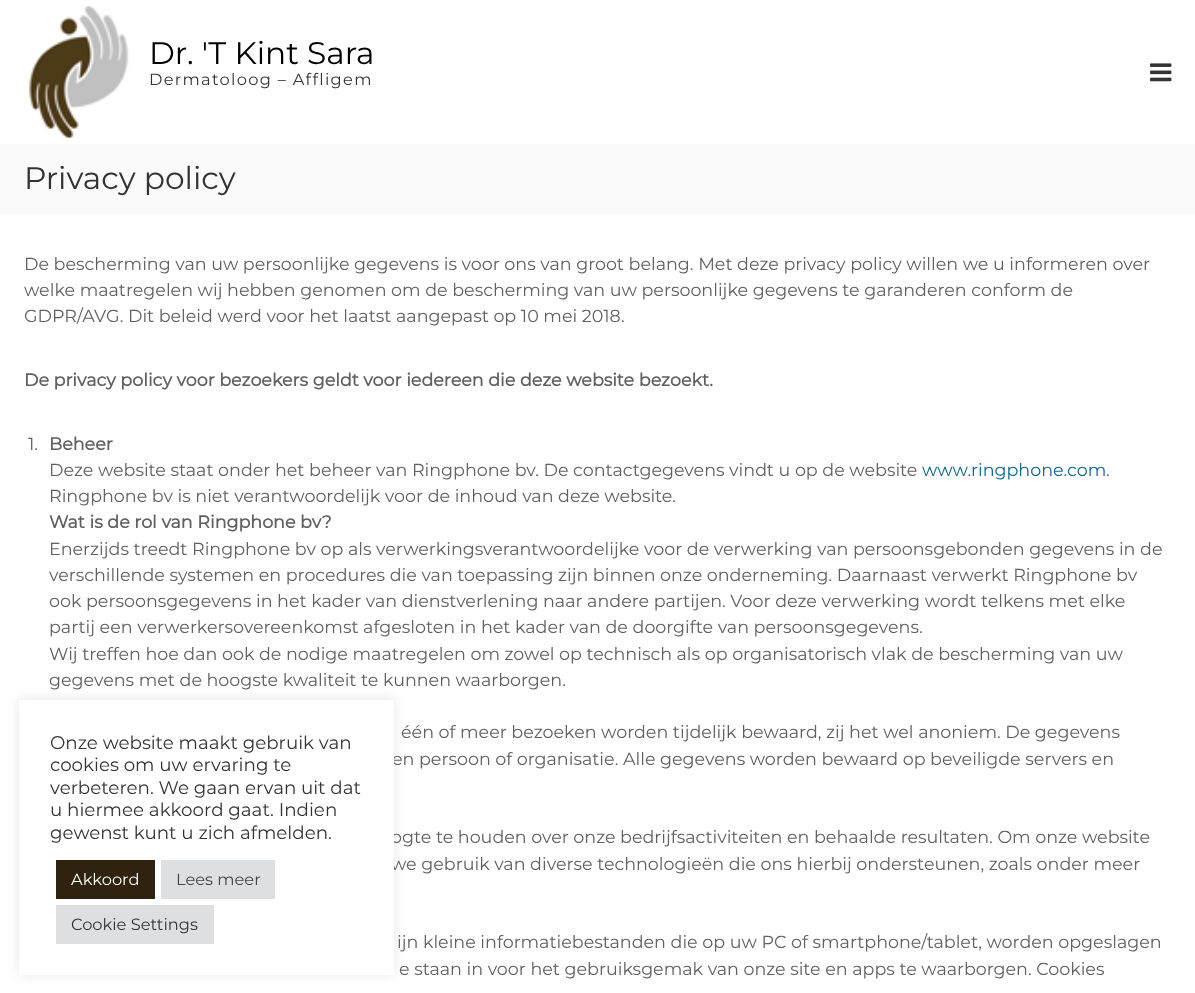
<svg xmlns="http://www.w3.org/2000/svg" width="1195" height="993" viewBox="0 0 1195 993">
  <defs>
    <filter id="blur1" x="-50%" y="-200%" width="200%" height="500%"><feGaussianBlur stdDeviation="6"/></filter>
  </defs>
  <rect width="100%" height="100%" fill="#ffffff"/>
  <image x="28" y="6" width="101" height="132" href="img1.png"/>
  <text x="149" y="64" font-family="Montserrat" font-size="31.25" fill="#000000">Dr. 'T Kint Sara</text>
  <text x="149" y="85" font-family="Montserrat" font-size="16.25" letter-spacing="1.3" fill="#333333">Dermatoloog – Affligem</text>
  <image x="1150" y="63" width="22" height="19" href="img2.png"/>
  <rect x="0" y="144" width="1195" height="70" fill="#fafafa"/>
  <text x="24" y="189" font-family="Montserrat" font-size="31.25" fill="#333333">Privacy policy</text>
  <text x="24" y="270" font-family="Montserrat" font-size="17.5" fill="#606060">De bescherming van uw persoonlijke gegevens is voor ons van groot belang. Met deze privacy policy willen we u informeren over</text>
  <text x="24" y="296" font-family="Montserrat" font-size="17.5" fill="#606060">welke maatregelen wij hebben genomen om de bescherming van uw persoonlijke gegevens te garanderen conform de</text>
  <text x="24" y="322" font-family="Montserrat" font-size="17.5" fill="#606060">GDPR/AVG. Dit beleid werd voor het laatst aangepast op 10 mei 2018.</text>
  <text x="24" y="386" font-family="Montserrat" font-size="17.5" font-weight="bold" fill="#606060">De privacy policy voor bezoekers geldt voor iedereen die deze website bezoekt.</text>
  <text x="28" y="450" font-family="Montserrat" font-size="17.5" fill="#606060">1.</text>
  <text x="49" y="450" font-family="Montserrat" font-size="17.5" font-weight="bold" fill="#606060">Beheer</text>
  <text x="49" y="476" font-family="Montserrat" font-size="17.5" fill="#606060">Deze website staat onder het beheer van Ringphone bv. De contactgegevens vindt u op de website</text>
  <text x="922" y="476" font-family="Montserrat" font-size="17.5" fill="#0e6791">www.ringphone.com</text>
  <text x="1106" y="476" font-family="Montserrat" font-size="17.5" fill="#606060">.</text>
  <text x="49" y="502" font-family="Montserrat" font-size="17.5" fill="#606060">Ringphone bv is niet verantwoordelijk voor de inhoud van deze website.</text>
  <text x="49" y="528" font-family="Montserrat" font-size="17.5" font-weight="bold" fill="#606060">Wat is de rol van Ringphone bv?</text>
  <text x="49" y="555" font-family="Montserrat" font-size="17.5" fill="#606060">Enerzijds treedt Ringphone bv op als verwerkingsverantwoordelijke voor de verwerking van persoonsgebonden gegevens in de</text>
  <text x="49" y="581" font-family="Montserrat" font-size="17.5" fill="#606060">verschillende systemen en procedures die van toepassing zijn binnen onze onderneming. Daarnaast verwerkt Ringphone bv</text>
  <text x="49" y="607" font-family="Montserrat" font-size="17.5" fill="#606060">ook persoonsgegevens in het kader van dienstverlening naar andere partijen. Voor deze verwerking wordt telkens met elke</text>
  <text x="49" y="633" font-family="Montserrat" font-size="17.5" fill="#606060">partij een verwerkersovereenkomst afgesloten in het kader van de doorgifte van persoonsgegevens.</text>
  <text x="49" y="660" font-family="Montserrat" font-size="17.5" fill="#606060">Wij treffen hoe dan ook de nodige maatregelen om zowel op technisch als op organisatorisch vlak de bescherming van uw</text>
  <text x="49" y="686" font-family="Montserrat" font-size="17.5" fill="#606060">gegevens met de hoogste kwaliteit te kunnen waarborgen.</text>
  <text x="401" y="738" font-family="Montserrat" font-size="17.5" fill="#606060">één of meer bezoeken worden tijdelijk bewaard, zij het wel anoniem. De gegevens</text>
  <text x="392" y="765" font-family="Montserrat" font-size="17.5" fill="#606060">en persoon of organisatie. Alle gegevens worden bewaard op beveiligde servers en</text>
  <text x="391" y="843" font-family="Montserrat" font-size="17.5" fill="#606060">ogte te houden over onze bedrijfsactiviteiten en behaalde resultaten. Om onze website</text>
  <text x="391" y="870" font-family="Montserrat" font-size="17.5" fill="#606060">we gebruik van diverse technologieën die ons hierbij ondersteunen, zoals onder meer</text>
  <text x="397" y="948" font-family="Montserrat" font-size="17.5" fill="#606060">ijn kleine informatiebestanden die op uw PC of smartphone/tablet, worden opgeslagen</text>
  <text x="399" y="975" font-family="Montserrat" font-size="17.5" fill="#606060">e staan in voor het gebruiksgemak van onze site en apps te waarborgen. Cookies</text>
  <rect x="19" y="699" width="375" height="275" fill="#acabab" fill-opacity="0.3" filter="url(#blur1)"/>
  <rect x="19" y="700" width="375" height="275" fill="#ffffff"/>
  <text x="50" y="749" font-family="Montserrat" font-size="18.3" fill="#333333">Onze website maakt gebruik van</text>
  <text x="50" y="771" font-family="Montserrat" font-size="18.3" fill="#333333">cookies om uw ervaring te</text>
  <text x="50" y="794" font-family="Montserrat" font-size="18.3" fill="#333333">verbeteren. We gaan ervan uit dat</text>
  <text x="50" y="816" font-family="Montserrat" font-size="18.3" fill="#333333">u hiermee akkoord gaat. Indien</text>
  <text x="50" y="839" font-family="Montserrat" font-size="18.3" fill="#333333">gewenst kunt u zich afmelden.</text>
  <rect x="56" y="860" width="99" height="39" fill="#2f230f"/>
  <text x="71" y="885" font-family="Montserrat" font-size="16.25" fill="#ffffff">Akkoord</text>
  <rect x="161" y="860" width="114" height="39" fill="#dedfe0"/>
  <text x="176" y="885" font-family="Montserrat" font-size="16.25" fill="#444444">Lees meer</text>
  <rect x="56" y="905" width="158" height="39" fill="#dedfe0"/>
  <text x="71" y="930" font-family="Montserrat" font-size="16.25" fill="#333333">Cookie Settings</text>
</svg>
